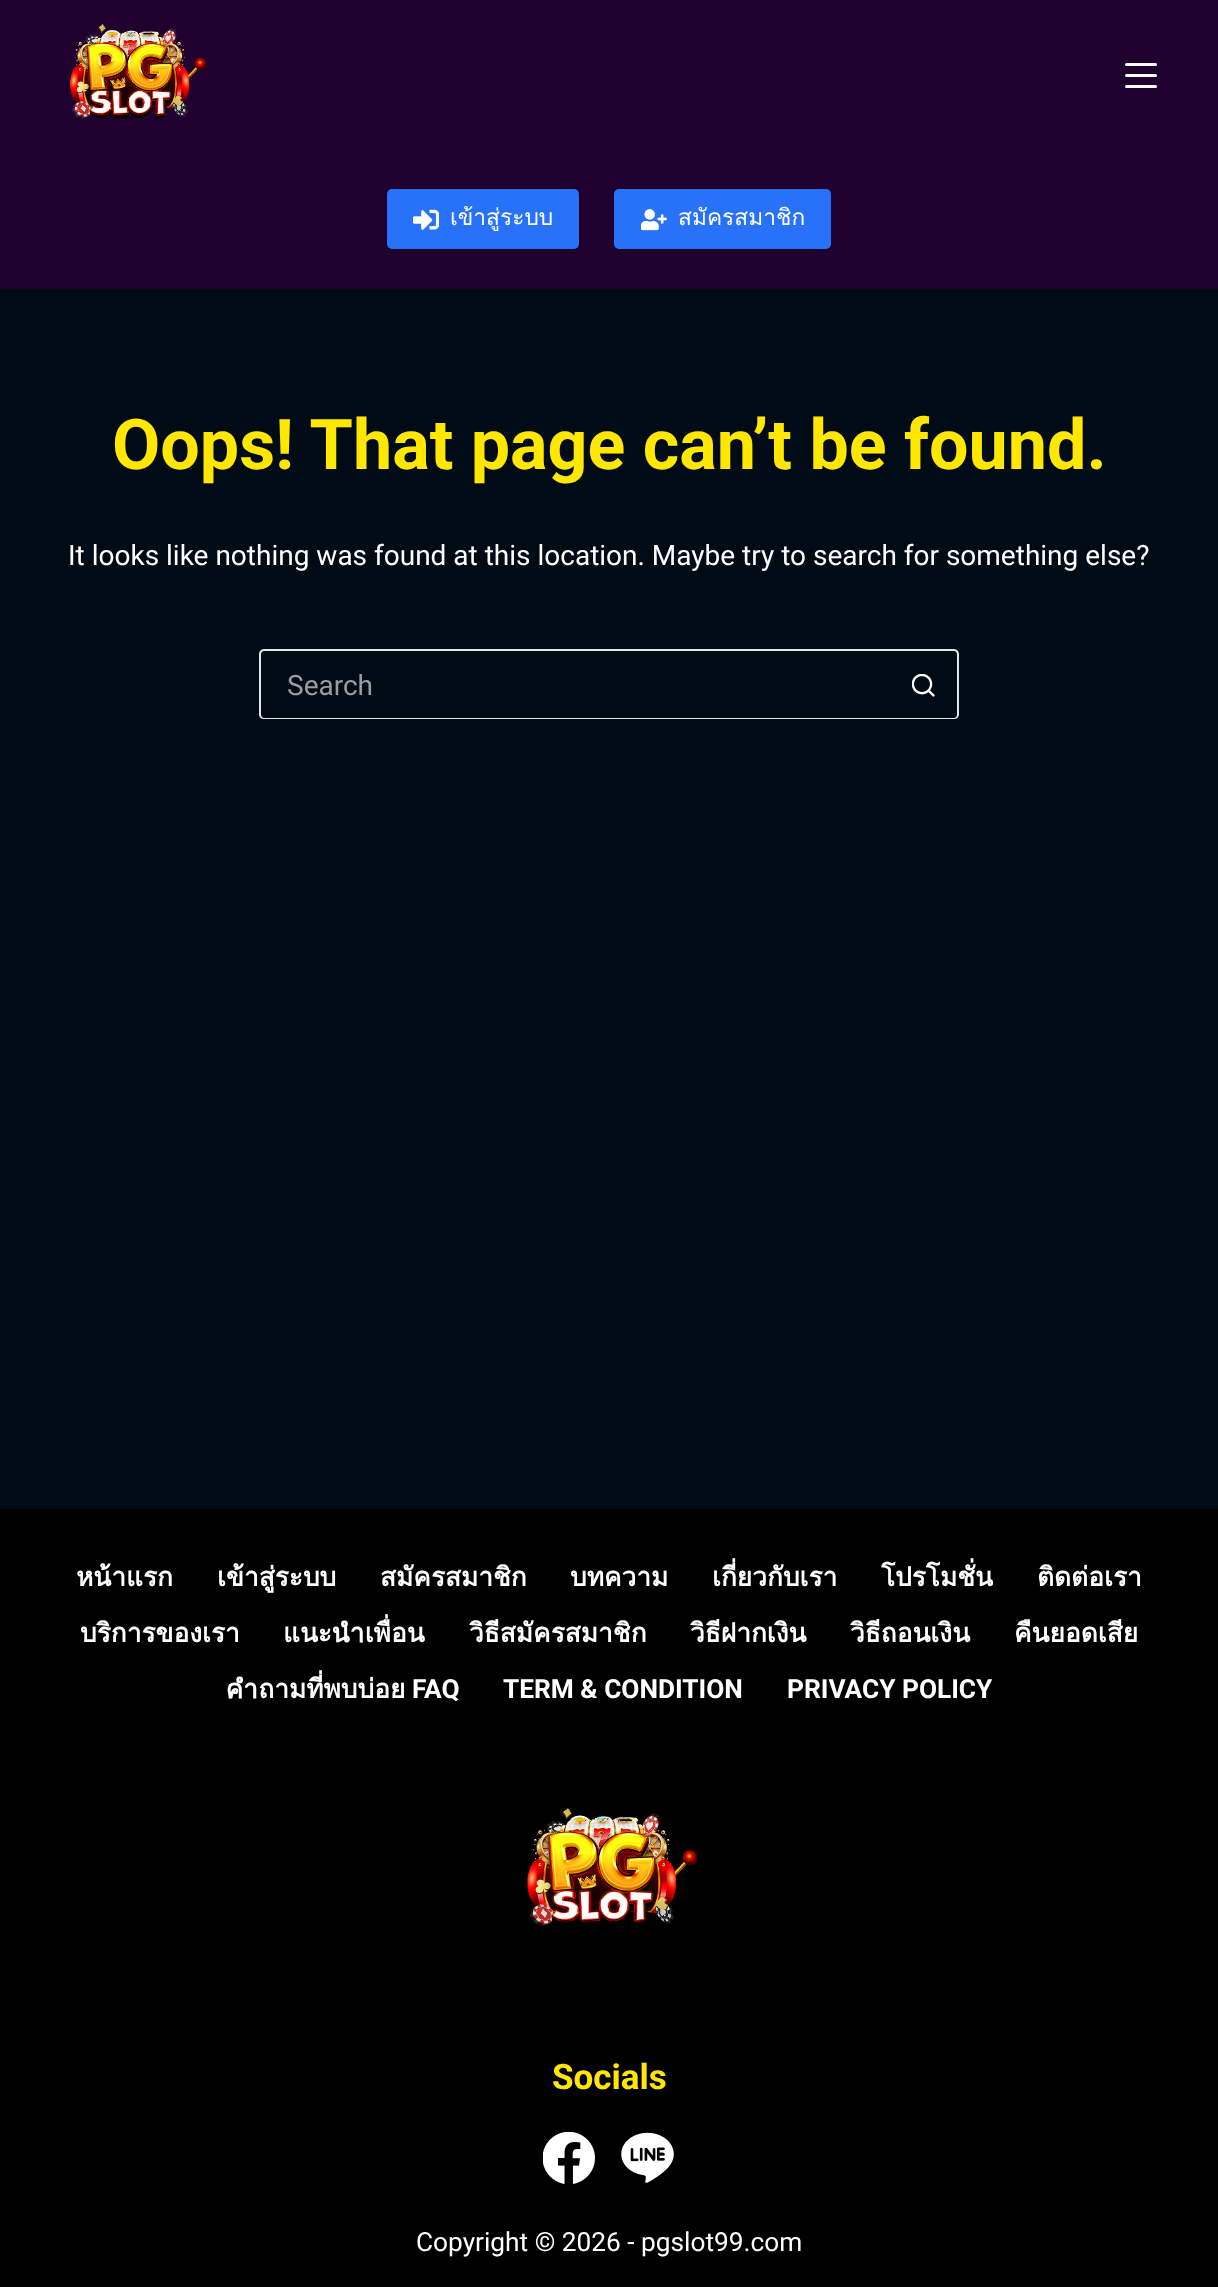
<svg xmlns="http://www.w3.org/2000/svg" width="1218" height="2287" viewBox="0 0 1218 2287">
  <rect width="100%" height="100%" fill="#000b16"/>
  <rect x="0" y="0" width="1218" height="289" fill="#20002f"/>
  <image x="70" y="24" width="137" height="95" href="img1.png"/>
  <rect x="1125" y="63" width="32" height="3" rx="1.5" fill="#ffffff"/>
  <rect x="1125" y="74" width="32" height="3" rx="1.5" fill="#ffffff"/>
  <rect x="1125" y="85" width="32" height="3" rx="1.5" fill="#ffffff"/>
  <rect x="387" y="189" width="192" height="60" rx="5" fill="#2872fa"/>
  <image x="413" y="209" width="26" height="21" href="img2.png"/>
  <text x="450" y="225" font-family="Loma" font-size="22.75" fill="#ffffff">เข้าสู่ระบบ</text>
  <rect x="614" y="189" width="217" height="60" rx="5" fill="#2872fa"/>
  <image x="641" y="209" width="26" height="22" href="img3.png"/>
  <text x="678" y="225" font-family="Loma" font-size="22.75" fill="#ffffff">สมัครสมาชิก</text>
  <text x="112" y="469" font-family="Roboto" font-size="70" font-weight="bold" fill="#ffe700">Oops! That page can’t be found.</text>
  <text x="68" y="565" font-family="Roboto" font-size="28" fill="#ffffff">It looks like nothing was found at this location. Maybe try to search for something else?</text>
  <path d="M264 649H889V719H264C261 719 259 717 259 714V654C259 652 261 649 264 649ZM264 651H889V718H264C262 718 261 716 261 714V654C261 653 262 651 264 651Z" fill="#e1e8ed" fill-rule="evenodd"/>
  <text x="287" y="695" font-family="Roboto" font-size="28" fill="#999da2">Search</text>
  <path d="M889 649H954C957 649 959 652 959 654V714C959 717 957 719 954 719H889ZM889 651H954C956 651 957 653 957 654V714C957 716 956 718 954 718H889Z" fill="#e1e8ed" fill-rule="evenodd"/>
  <image x="912" y="674" width="23" height="23" href="img4.png"/>
  <rect x="0" y="1509" width="1218" height="778" fill="#000000"/>
  <text x="76" y="1586" font-family="Loma" font-size="26.25" font-weight="bold" fill="#ffffff">หน้าแรก</text>
  <text x="217" y="1586" font-family="Loma" font-size="26.25" font-weight="bold" fill="#ffffff">เข้าสู่ระบบ</text>
  <text x="380" y="1586" font-family="Loma" font-size="26.25" font-weight="bold" fill="#ffffff">สมัครสมาชิก</text>
  <text x="570" y="1586" font-family="Loma" font-size="26.25" font-weight="bold" fill="#ffffff">บทความ</text>
  <text x="712" y="1586" font-family="Loma" font-size="26.25" font-weight="bold" fill="#ffffff">เกี่ยวกับเรา</text>
  <text x="881" y="1586" font-family="Loma" font-size="26.25" font-weight="bold" fill="#ffffff">โปรโมชั่น</text>
  <text x="1037" y="1586" font-family="Loma" font-size="26.25" font-weight="bold" fill="#ffffff">ติดต่อเรา</text>
  <text x="80" y="1642" font-family="Loma" font-size="26.25" font-weight="bold" fill="#ffffff">บริการของเรา</text>
  <text x="283" y="1642" font-family="Loma" font-size="26.25" font-weight="bold" fill="#ffffff">แนะนำเพื่อน</text>
  <text x="469" y="1642" font-family="Loma" font-size="26.25" font-weight="bold" fill="#ffffff">วิธีสมัครสมาชิก</text>
  <text x="690" y="1642" font-family="Loma" font-size="26.25" font-weight="bold" fill="#ffffff">วิธีฝากเงิน</text>
  <text x="850" y="1642" font-family="Loma" font-size="26.25" font-weight="bold" fill="#ffffff">วิธีถอนเงิน</text>
  <text x="1014" y="1642" font-family="Loma" font-size="26.25" font-weight="bold" fill="#ffffff">คืนยอดเสีย</text>
  <text x="226" y="1698" font-family="Loma" font-size="26.25" font-weight="bold" fill="#ffffff">คำถามที่พบบ่อย</text>
  <text x="412" y="1698" font-family="Roboto" font-size="26.25" font-weight="bold" fill="#ffffff">FAQ</text>
  <text x="503" y="1698" font-family="Roboto" font-size="26.25" font-weight="bold" fill="#ffffff">TERM &amp; CONDITION</text>
  <text x="787" y="1698" font-family="Roboto" font-size="26.25" font-weight="bold" fill="#ffffff">PRIVACY POLICY</text>
  <image x="527" y="1807" width="171" height="119" href="img5.png"/>
  <text x="552" y="2089" font-family="Roboto" font-size="35" font-weight="bold" fill="#ffe700">Socials</text>
  <image x="543" y="2132" width="52" height="52" href="img6.png"/>
  <image x="621" y="2132" width="53" height="51" href="img7.png"/>
  <text x="416" y="2251" font-family="Roboto" font-size="26.25" fill="#ffffff">Copyright © 2026 - pgslot99.com</text>
</svg>
